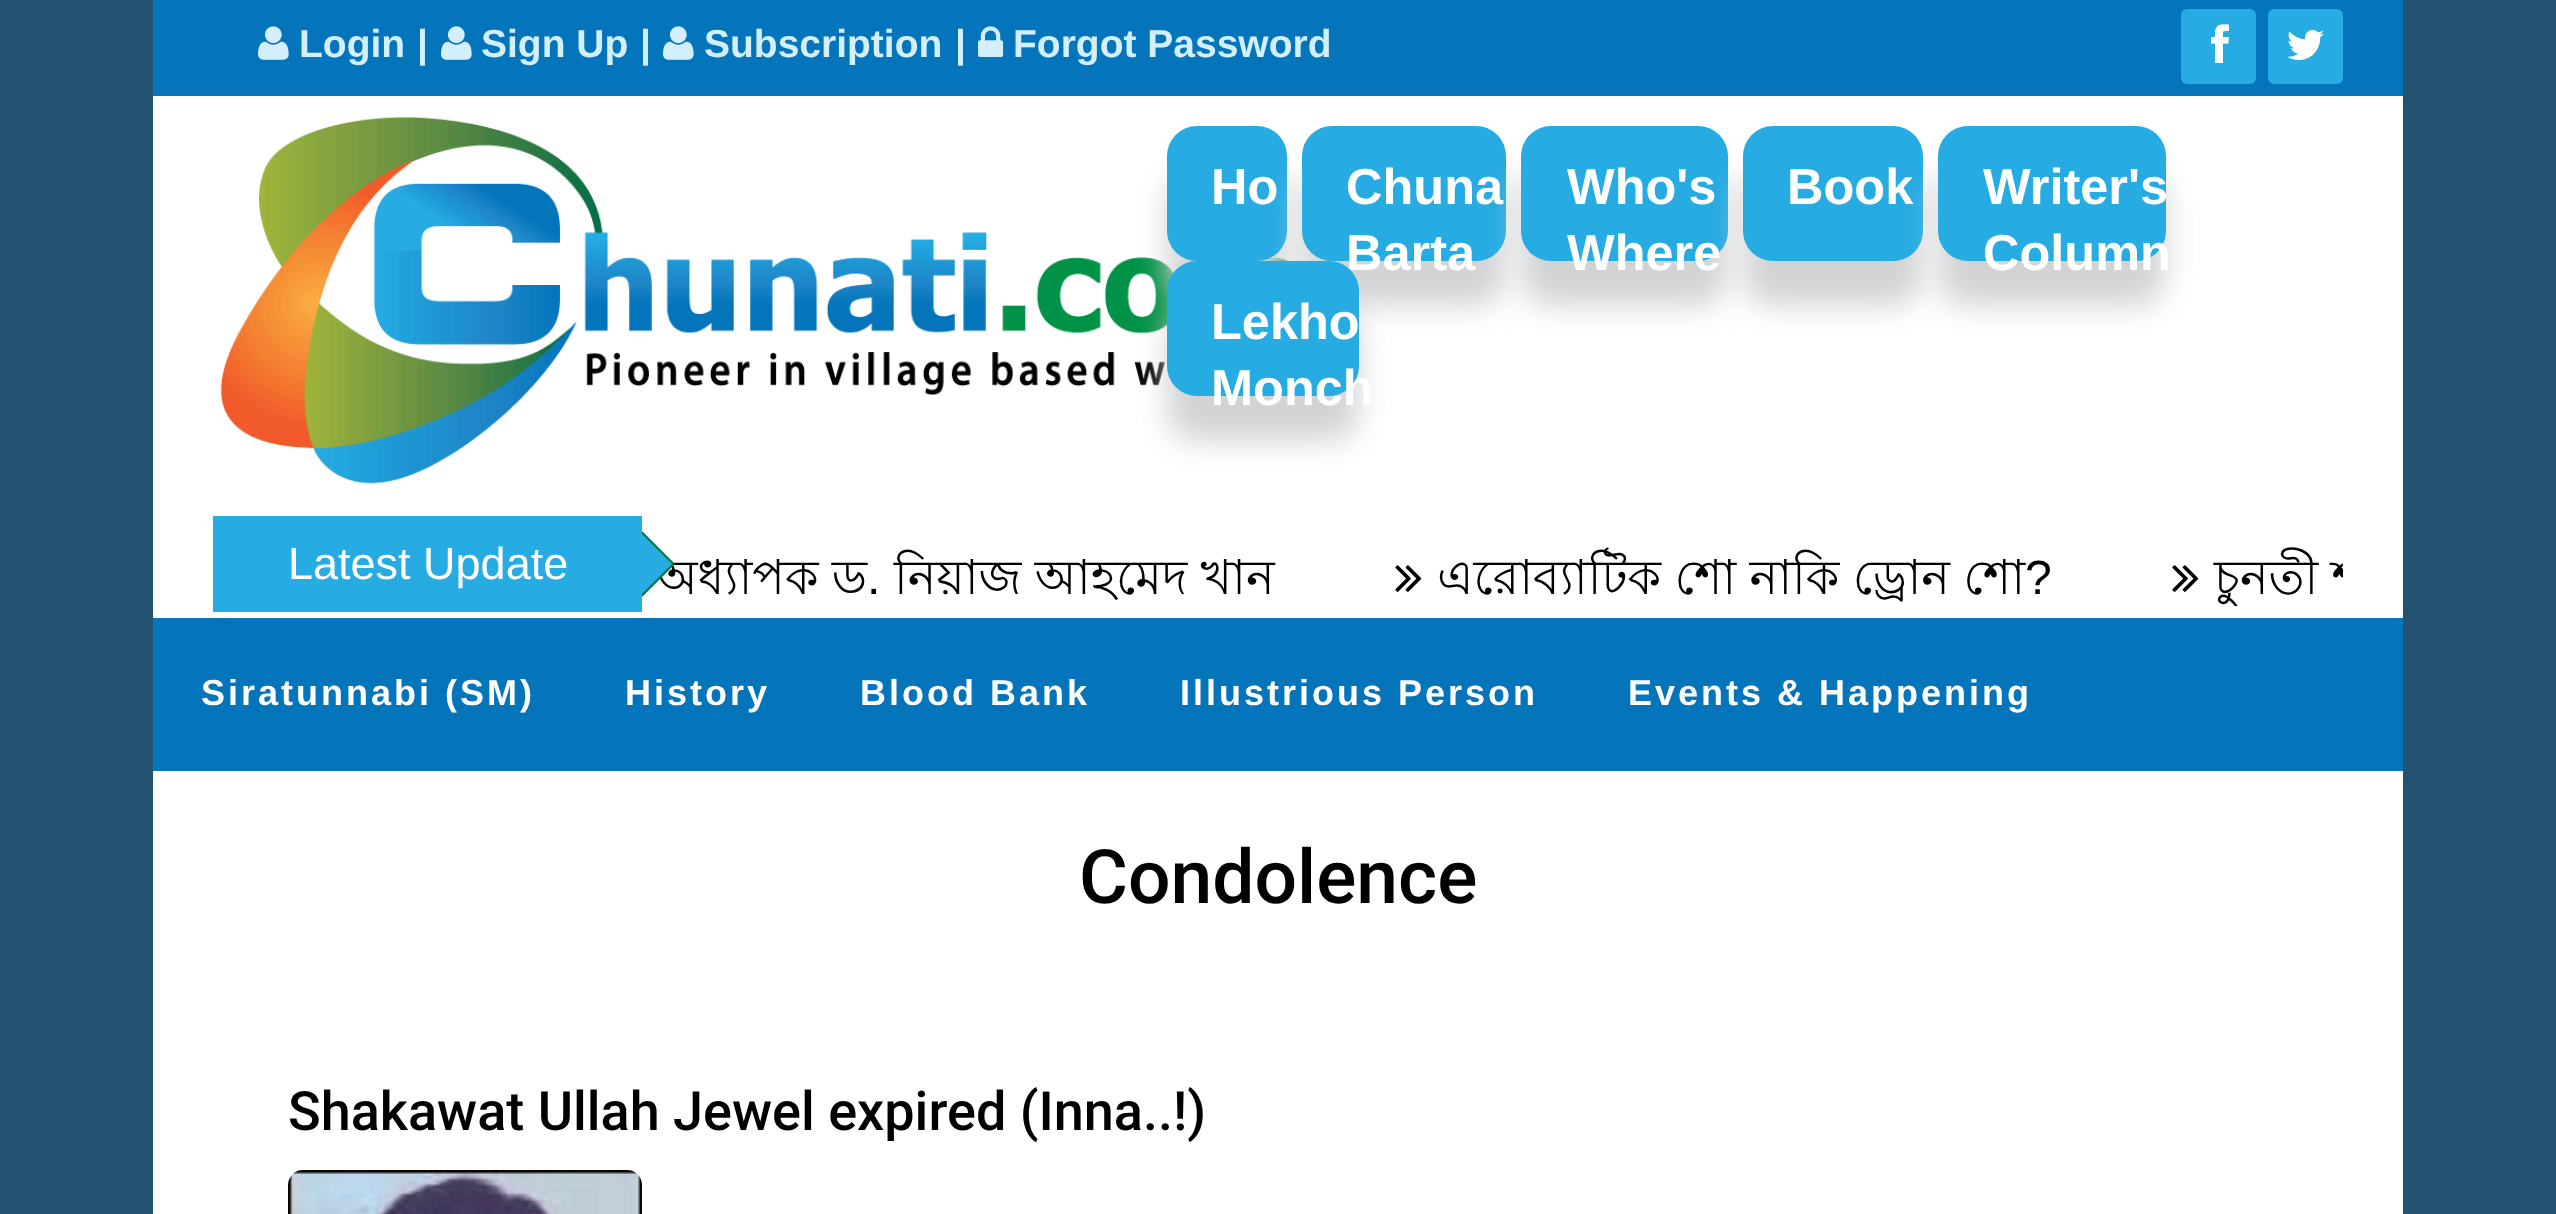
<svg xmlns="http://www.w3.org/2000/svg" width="2556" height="1214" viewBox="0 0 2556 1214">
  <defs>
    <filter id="blur1" x="-50%" y="-200%" width="200%" height="500%"><feGaussianBlur stdDeviation="15"/></filter>
    <clipPath id="clip1"><rect x="243" y="546" width="2100" height="60"/></clipPath>
  </defs>
  <rect width="100%" height="100%" fill="#245371"/>
  <rect x="153" y="96" width="2250" height="1118" fill="#ffffff"/>
  <rect x="153" y="0" width="2250" height="96" fill="#0474bb"/>
  <image x="258" y="26" width="31" height="34" href="img1.png"/>
  <text x="299" y="57" font-family="Liberation Sans" font-size="39" font-weight="bold" fill="#d4effc">Login</text>
  <text x="417" y="57" font-family="Liberation Sans" font-size="39" font-weight="bold" fill="#d4effc">|</text>
  <image x="441" y="26" width="31" height="34" href="img1.png"/>
  <text x="481" y="57" font-family="Liberation Sans" font-size="39" font-weight="bold" fill="#d4effc">Sign Up</text>
  <text x="640" y="57" font-family="Liberation Sans" font-size="39" font-weight="bold" fill="#d4effc">|</text>
  <image x="663" y="26" width="31" height="34" href="img1.png"/>
  <text x="704" y="57" font-family="Liberation Sans" font-size="39" font-weight="bold" fill="#d4effc">Subscription</text>
  <text x="955" y="57" font-family="Liberation Sans" font-size="39" font-weight="bold" fill="#d4effc">|</text>
  <image x="978" y="26" width="26" height="31" href="img2.png"/>
  <text x="1013" y="57" font-family="Liberation Sans" font-size="39" font-weight="bold" fill="#d4effc">Forgot Password</text>
  <rect x="2181" y="9" width="75" height="75" rx="6" fill="#26abe2"/>
  <image x="2211" y="24" width="18" height="39" href="img3.png"/>
  <rect x="2268" y="9" width="75" height="75" rx="6" fill="#26abe2"/>
  <image x="2287" y="30" width="37" height="30" href="img4.png"/>
  <image x="220" y="116" width="1081" height="368" href="img5.png"/>
  <rect x="1167" y="171" width="120" height="135" rx="30" fill="#d1d3d4" filter="url(#blur1)"/>
  <rect x="1167" y="126" width="120" height="135" rx="30" fill="#26abe2"/>
  <text x="1211" y="204" font-family="Liberation Sans" font-size="50.5" font-weight="bold" fill="#ffffff">Ho</text>
  <rect x="1302" y="171" width="204" height="135" rx="30" fill="#d1d3d4" filter="url(#blur1)"/>
  <rect x="1302" y="126" width="204" height="135" rx="30" fill="#26abe2"/>
  <text x="1346" y="204" font-family="Liberation Sans" font-size="50.5" font-weight="bold" fill="#ffffff">Chuna</text>
  <text x="1346" y="270" font-family="Liberation Sans" font-size="50.5" font-weight="bold" fill="#ffffff">Barta</text>
  <rect x="1521" y="171" width="207" height="135" rx="30" fill="#d1d3d4" filter="url(#blur1)"/>
  <rect x="1521" y="126" width="207" height="135" rx="30" fill="#26abe2"/>
  <text x="1567" y="204" font-family="Liberation Sans" font-size="50.5" font-weight="bold" fill="#ffffff">Who's</text>
  <text x="1567" y="270" font-family="Liberation Sans" font-size="50.5" font-weight="bold" fill="#ffffff">Where</text>
  <rect x="1743" y="171" width="180" height="135" rx="30" fill="#d1d3d4" filter="url(#blur1)"/>
  <rect x="1743" y="126" width="180" height="135" rx="30" fill="#26abe2"/>
  <text x="1787" y="204" font-family="Liberation Sans" font-size="50.5" font-weight="bold" fill="#ffffff">Book</text>
  <rect x="1938" y="171" width="228" height="135" rx="30" fill="#d1d3d4" filter="url(#blur1)"/>
  <rect x="1938" y="126" width="228" height="135" rx="30" fill="#26abe2"/>
  <text x="1983" y="204" font-family="Liberation Sans" font-size="50.5" font-weight="bold" fill="#ffffff">Writer's</text>
  <text x="1983" y="270" font-family="Liberation Sans" font-size="50.5" font-weight="bold" fill="#ffffff">Column</text>
  <rect x="1167" y="306" width="192" height="135" rx="30" fill="#d1d3d4" filter="url(#blur1)"/>
  <rect x="1167" y="261" width="192" height="135" rx="30" fill="#26abe2"/>
  <text x="1211" y="339" font-family="Liberation Sans" font-size="50.5" font-weight="bold" fill="#ffffff">Lekho</text>
  <text x="1211" y="405" font-family="Liberation Sans" font-size="50.5" font-weight="bold" fill="#ffffff">Monch</text>
  <rect x="213" y="516" width="429" height="96" fill="#26abe2"/>
  <text x="656" y="594" font-family="Lohit Bengali" font-size="48" fill="#000000">অধ্যাপক ড</text>
  <path d="M642 597V531L675 564Z" fill="#00793a"/>
  <text x="288" y="579" font-family="Liberation Sans" font-size="45" fill="#ffffff">Latest Update</text>
  <path d="M642 594V534L672 564Z" fill="#26abe2"/>
  <text x="867" y="594" font-family="Liberation Sans" font-size="48" fill="#000000">.</text>
  <text x="894" y="594" font-family="Lohit Bengali" font-size="48" fill="#000000">নিয়াজ আহমেদ খান</text>
  <image x="1395" y="565" width="27" height="27" href="img6.png"/>
  <text x="1437" y="594" font-family="Lohit Bengali" font-size="48" fill="#000000">এরোব্যাটিক শো নাকি ড্রোন শো</text>
  <text x="2025" y="594" font-family="Liberation Sans" font-size="48" fill="#000000">?</text>
  <image x="2172" y="565" width="27" height="27" href="img6.png"/>
  <g clip-path="url(#clip1)">
    <text x="2214" y="594" font-family="Lohit Bengali" font-size="48" fill="#000000">চুনতী শ</text>
  </g>
  <rect x="153" y="618" width="2250" height="153" fill="#0474bb"/>
  <text x="201" y="705" font-family="Liberation Sans" font-size="36" font-weight="bold" letter-spacing="3" fill="#ffffff">Siratunnabi (SM)</text>
  <text x="625" y="705" font-family="Liberation Sans" font-size="36" font-weight="bold" letter-spacing="3" fill="#ffffff">History</text>
  <text x="860" y="705" font-family="Liberation Sans" font-size="36" font-weight="bold" letter-spacing="3" fill="#ffffff">Blood Bank</text>
  <text x="1180" y="705" font-family="Liberation Sans" font-size="36" font-weight="bold" letter-spacing="3" fill="#ffffff">Illustrious Person</text>
  <text x="1628" y="705" font-family="Liberation Sans" font-size="36" font-weight="bold" letter-spacing="3" fill="#ffffff">Events &amp; Happening</text>
  <text x="1079" y="903" font-family="Roboto" font-size="75" font-weight="500" fill="#000000">Condolence</text>
  <text x="288" y="1130" font-family="Roboto" font-size="54" font-weight="500" fill="#000000">Shakawat Ullah Jewel expired (Inna..!)</text>
  <image x="288" y="1170" width="354" height="44" href="img7.png"/>
</svg>
